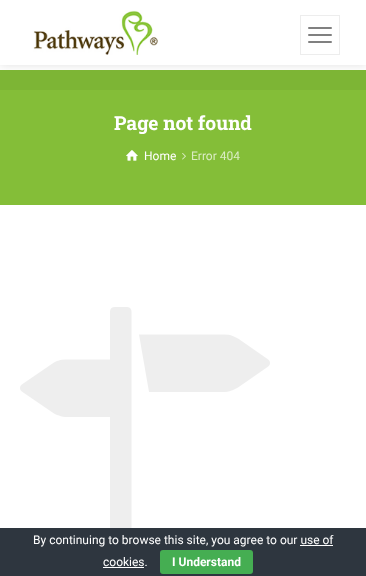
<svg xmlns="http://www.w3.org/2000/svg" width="366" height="576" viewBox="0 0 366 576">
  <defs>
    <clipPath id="clip1"><rect x="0" y="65" width="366" height="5"/></clipPath>
    <filter id="blur1" x="-50%" y="-200%" width="200%" height="500%"><feGaussianBlur stdDeviation="5"/></filter>
  </defs>
  <rect width="100%" height="100%" fill="#ffffff"/>
  <rect x="0" y="70" width="366" height="20" fill="#7db535"/>
  <g clip-path="url(#clip1)">
    <rect x="0" y="0" width="366" height="65" fill="#000000" fill-opacity="0.12" filter="url(#blur1)"/>
  </g>
  <image x="33" y="10" width="125" height="45" href="img1.png"/>
  <rect x="300.5" y="15.5" width="39" height="39" fill="none" stroke="#ededed"/>
  <rect x="308" y="27" width="24" height="2" rx="1" fill="#808080"/>
  <rect x="308" y="34" width="24" height="2" rx="1" fill="#808080"/>
  <rect x="308" y="41" width="24" height="2" rx="1" fill="#808080"/>
  <rect x="0" y="90" width="366" height="115" fill="#84be38"/>
  <text x="114" y="130" font-family="Roboto Slab" font-size="19.25" font-weight="bold" fill="#ffffff">Page not found</text>
  <image x="126" y="150" width="12" height="11" href="img2.png"/>
  <text x="144" y="160" font-family="Roboto" font-size="12" fill="#ffffff">Home</text>
  <image x="182" y="153" width="4" height="7" href="img3.png"/>
  <text x="191" y="160" font-family="Roboto" font-size="12" fill="#daecc3">Error 404</text>
  <image x="20" y="307" width="250" height="221" href="img4.png"/>
  <rect x="0" y="528" width="366" height="48" fill="#2e363f"/>
  <text x="33" y="544" font-family="Roboto" font-size="12" fill="#ffffff">By continuing to browse this site, you agree to our use of</text>
  <text x="103" y="566" font-family="Roboto" font-size="12" fill="#ffffff">cookies.</text>
  <rect x="300" y="545" width="33" height="1" fill="#ffffff"/>
  <rect x="103" y="567" width="41" height="1" fill="#ffffff"/>
  <rect x="160" y="550" width="93" height="24" rx="3" fill="#45ae52"/>
  <text x="172" y="566" font-family="Roboto" font-size="12" font-weight="bold" fill="#ffffff">I Understand</text>
</svg>
